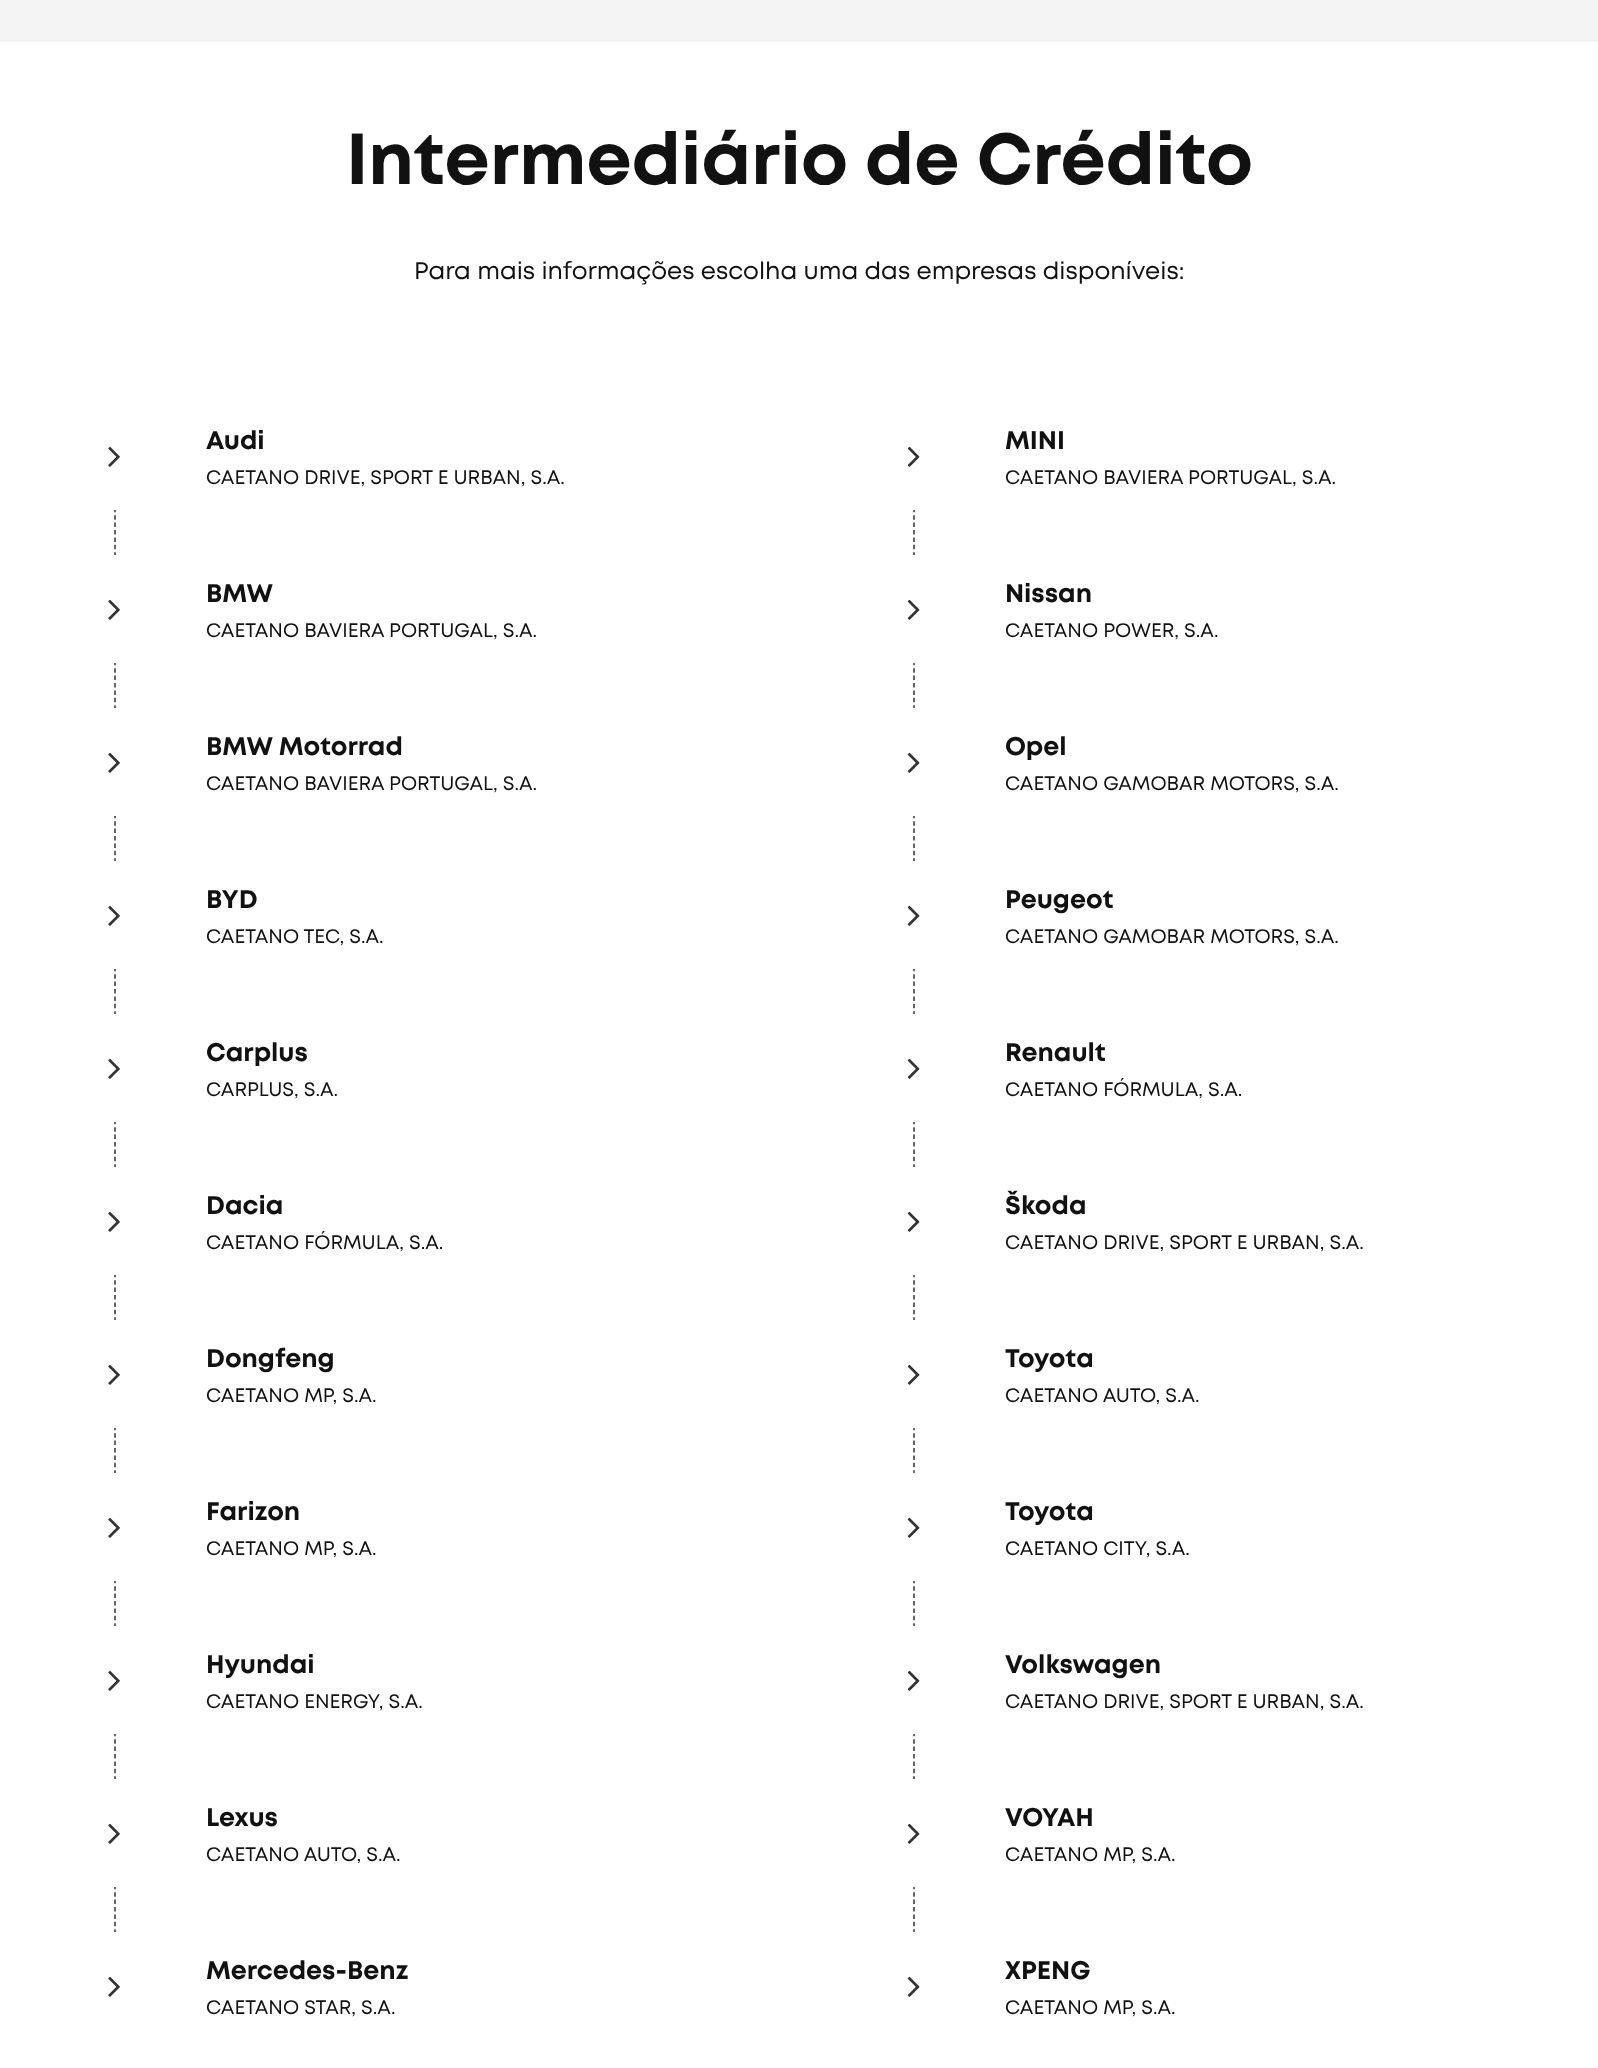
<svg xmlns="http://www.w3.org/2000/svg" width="1598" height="2068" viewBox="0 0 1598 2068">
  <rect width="100%" height="100%" fill="#ffffff"/>
  <rect x="0" y="0" width="1598" height="42" fill="#f4f4f4"/>
  <text x="346" y="184" font-family="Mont" font-size="72" font-weight="bold" fill="#111111">Intermediário de Crédito</text>
  <text x="414" y="279" font-family="Mont" font-size="24" fill="#111111">Para mais informações escolha uma das empresas disponíveis:</text>
  <path d="M115 456V564" fill="none" stroke="#333333" stroke-width="1.5" stroke-dasharray="4.5 2.9"/>
  <rect x="114" y="456" width="2" height="54" fill="#ffffff"/>
  <image x="108" y="446" width="12" height="21" href="img1.png"/>
  <text x="206" y="449" font-family="Mont" font-size="25.5" font-weight="bold" fill="#111111">Audi</text>
  <text x="206" y="484" font-family="Mont" font-size="19.5" fill="#111111">CAETANO DRIVE, SPORT E URBAN, S.A.</text>
  <path d="M115 609V717" fill="none" stroke="#333333" stroke-width="1.5" stroke-dasharray="4.5 2.9"/>
  <rect x="114" y="555" width="2" height="108" fill="#ffffff"/>
  <image x="108" y="599" width="12" height="21" href="img1.png"/>
  <text x="206" y="602" font-family="Mont" font-size="25.5" font-weight="bold" fill="#111111">BMW</text>
  <text x="206" y="637" font-family="Mont" font-size="19.5" fill="#111111">CAETANO BAVIERA PORTUGAL, S.A.</text>
  <path d="M115 762V870" fill="none" stroke="#333333" stroke-width="1.5" stroke-dasharray="4.5 2.9"/>
  <rect x="114" y="708" width="2" height="108" fill="#ffffff"/>
  <image x="108" y="752" width="12" height="21" href="img1.png"/>
  <text x="206" y="755" font-family="Mont" font-size="25.5" font-weight="bold" fill="#111111">BMW Motorrad</text>
  <text x="206" y="790" font-family="Mont" font-size="19.5" fill="#111111">CAETANO BAVIERA PORTUGAL, S.A.</text>
  <path d="M115 915V1023" fill="none" stroke="#333333" stroke-width="1.5" stroke-dasharray="4.5 2.9"/>
  <rect x="114" y="861" width="2" height="108" fill="#ffffff"/>
  <image x="108" y="905" width="12" height="21" href="img1.png"/>
  <text x="206" y="908" font-family="Mont" font-size="25.5" font-weight="bold" fill="#111111">BYD</text>
  <text x="206" y="943" font-family="Mont" font-size="19.5" fill="#111111">CAETANO TEC, S.A.</text>
  <path d="M115 1068V1176" fill="none" stroke="#333333" stroke-width="1.5" stroke-dasharray="4.5 2.9"/>
  <rect x="114" y="1014" width="2" height="108" fill="#ffffff"/>
  <image x="108" y="1058" width="12" height="21" href="img1.png"/>
  <text x="206" y="1061" font-family="Mont" font-size="25.5" font-weight="bold" fill="#111111">Carplus</text>
  <text x="206" y="1096" font-family="Mont" font-size="19.5" fill="#111111">CARPLUS, S.A.</text>
  <path d="M115 1221V1329" fill="none" stroke="#333333" stroke-width="1.5" stroke-dasharray="4.5 2.9"/>
  <rect x="114" y="1167" width="2" height="108" fill="#ffffff"/>
  <image x="108" y="1211" width="12" height="21" href="img1.png"/>
  <text x="206" y="1214" font-family="Mont" font-size="25.5" font-weight="bold" fill="#111111">Dacia</text>
  <text x="206" y="1249" font-family="Mont" font-size="19.5" fill="#111111">CAETANO FÓRMULA, S.A.</text>
  <path d="M115 1374V1482" fill="none" stroke="#333333" stroke-width="1.5" stroke-dasharray="4.5 2.9"/>
  <rect x="114" y="1320" width="2" height="108" fill="#ffffff"/>
  <image x="108" y="1364" width="12" height="21" href="img1.png"/>
  <text x="206" y="1367" font-family="Mont" font-size="25.5" font-weight="bold" fill="#111111">Dongfeng</text>
  <text x="206" y="1402" font-family="Mont" font-size="19.5" fill="#111111">CAETANO MP, S.A.</text>
  <path d="M115 1527V1635" fill="none" stroke="#333333" stroke-width="1.5" stroke-dasharray="4.5 2.9"/>
  <rect x="114" y="1473" width="2" height="108" fill="#ffffff"/>
  <image x="108" y="1517" width="12" height="21" href="img1.png"/>
  <text x="206" y="1520" font-family="Mont" font-size="25.5" font-weight="bold" fill="#111111">Farizon</text>
  <text x="206" y="1555" font-family="Mont" font-size="19.5" fill="#111111">CAETANO MP, S.A.</text>
  <path d="M115 1680V1788" fill="none" stroke="#333333" stroke-width="1.5" stroke-dasharray="4.5 2.9"/>
  <rect x="114" y="1626" width="2" height="108" fill="#ffffff"/>
  <image x="108" y="1670" width="12" height="21" href="img1.png"/>
  <text x="206" y="1673" font-family="Mont" font-size="25.5" font-weight="bold" fill="#111111">Hyundai</text>
  <text x="206" y="1708" font-family="Mont" font-size="19.5" fill="#111111">CAETANO ENERGY, S.A.</text>
  <path d="M115 1833V1941" fill="none" stroke="#333333" stroke-width="1.5" stroke-dasharray="4.5 2.9"/>
  <rect x="114" y="1779" width="2" height="108" fill="#ffffff"/>
  <image x="108" y="1823" width="12" height="21" href="img1.png"/>
  <text x="206" y="1826" font-family="Mont" font-size="25.5" font-weight="bold" fill="#111111">Lexus</text>
  <text x="206" y="1861" font-family="Mont" font-size="19.5" fill="#111111">CAETANO AUTO, S.A.</text>
  <rect x="114" y="1932" width="2" height="9" fill="#ffffff"/>
  <image x="108" y="1976" width="12" height="21" href="img1.png"/>
  <text x="206" y="1979" font-family="Mont" font-size="25.5" font-weight="bold" fill="#111111">Mercedes-Benz</text>
  <text x="206" y="2014" font-family="Mont" font-size="19.5" fill="#111111">CAETANO STAR, S.A.</text>
  <path d="M914 456V564" fill="none" stroke="#333333" stroke-width="1.5" stroke-dasharray="4.5 2.9"/>
  <rect x="913" y="456" width="2" height="54" fill="#ffffff"/>
  <image x="907" y="446" width="13" height="21" href="img2.png"/>
  <text x="1005" y="449" font-family="Mont" font-size="25.5" font-weight="bold" fill="#111111">MINI</text>
  <text x="1005" y="484" font-family="Mont" font-size="19.5" fill="#111111">CAETANO BAVIERA PORTUGAL, S.A.</text>
  <path d="M914 609V717" fill="none" stroke="#333333" stroke-width="1.5" stroke-dasharray="4.5 2.9"/>
  <rect x="913" y="555" width="2" height="108" fill="#ffffff"/>
  <image x="907" y="599" width="13" height="21" href="img2.png"/>
  <text x="1005" y="602" font-family="Mont" font-size="25.5" font-weight="bold" fill="#111111">Nissan</text>
  <text x="1005" y="637" font-family="Mont" font-size="19.5" fill="#111111">CAETANO POWER, S.A.</text>
  <path d="M914 762V870" fill="none" stroke="#333333" stroke-width="1.5" stroke-dasharray="4.5 2.9"/>
  <rect x="913" y="708" width="2" height="108" fill="#ffffff"/>
  <image x="907" y="752" width="13" height="21" href="img2.png"/>
  <text x="1005" y="755" font-family="Mont" font-size="25.5" font-weight="bold" fill="#111111">Opel</text>
  <text x="1005" y="790" font-family="Mont" font-size="19.5" fill="#111111">CAETANO GAMOBAR MOTORS, S.A.</text>
  <path d="M914 915V1023" fill="none" stroke="#333333" stroke-width="1.5" stroke-dasharray="4.5 2.9"/>
  <rect x="913" y="861" width="2" height="108" fill="#ffffff"/>
  <image x="907" y="905" width="13" height="21" href="img2.png"/>
  <text x="1005" y="908" font-family="Mont" font-size="25.5" font-weight="bold" fill="#111111">Peugeot</text>
  <text x="1005" y="943" font-family="Mont" font-size="19.5" fill="#111111">CAETANO GAMOBAR MOTORS, S.A.</text>
  <path d="M914 1068V1176" fill="none" stroke="#333333" stroke-width="1.5" stroke-dasharray="4.5 2.9"/>
  <rect x="913" y="1014" width="2" height="108" fill="#ffffff"/>
  <image x="907" y="1058" width="13" height="21" href="img2.png"/>
  <text x="1005" y="1061" font-family="Mont" font-size="25.5" font-weight="bold" fill="#111111">Renault</text>
  <text x="1005" y="1096" font-family="Mont" font-size="19.5" fill="#111111">CAETANO FÓRMULA, S.A.</text>
  <path d="M914 1221V1329" fill="none" stroke="#333333" stroke-width="1.5" stroke-dasharray="4.5 2.9"/>
  <rect x="913" y="1167" width="2" height="108" fill="#ffffff"/>
  <image x="907" y="1211" width="13" height="21" href="img2.png"/>
  <text x="1005" y="1214" font-family="Mont" font-size="25.5" font-weight="bold" fill="#111111">Škoda</text>
  <text x="1005" y="1249" font-family="Mont" font-size="19.5" fill="#111111">CAETANO DRIVE, SPORT E URBAN, S.A.</text>
  <path d="M914 1374V1482" fill="none" stroke="#333333" stroke-width="1.5" stroke-dasharray="4.5 2.9"/>
  <rect x="913" y="1320" width="2" height="108" fill="#ffffff"/>
  <image x="907" y="1364" width="13" height="21" href="img2.png"/>
  <text x="1005" y="1367" font-family="Mont" font-size="25.5" font-weight="bold" fill="#111111">Toyota</text>
  <text x="1005" y="1402" font-family="Mont" font-size="19.5" fill="#111111">CAETANO AUTO, S.A.</text>
  <path d="M914 1527V1635" fill="none" stroke="#333333" stroke-width="1.5" stroke-dasharray="4.5 2.9"/>
  <rect x="913" y="1473" width="2" height="108" fill="#ffffff"/>
  <image x="907" y="1517" width="13" height="21" href="img2.png"/>
  <text x="1005" y="1520" font-family="Mont" font-size="25.5" font-weight="bold" fill="#111111">Toyota</text>
  <text x="1005" y="1555" font-family="Mont" font-size="19.5" fill="#111111">CAETANO CITY, S.A.</text>
  <path d="M914 1680V1788" fill="none" stroke="#333333" stroke-width="1.5" stroke-dasharray="4.5 2.9"/>
  <rect x="913" y="1626" width="2" height="108" fill="#ffffff"/>
  <image x="907" y="1670" width="13" height="21" href="img2.png"/>
  <text x="1005" y="1673" font-family="Mont" font-size="25.5" font-weight="bold" fill="#111111">Volkswagen</text>
  <text x="1005" y="1708" font-family="Mont" font-size="19.5" fill="#111111">CAETANO DRIVE, SPORT E URBAN, S.A.</text>
  <path d="M914 1833V1941" fill="none" stroke="#333333" stroke-width="1.5" stroke-dasharray="4.5 2.9"/>
  <rect x="913" y="1779" width="2" height="108" fill="#ffffff"/>
  <image x="907" y="1823" width="13" height="21" href="img2.png"/>
  <text x="1005" y="1826" font-family="Mont" font-size="25.5" font-weight="bold" fill="#111111">VOYAH</text>
  <text x="1005" y="1861" font-family="Mont" font-size="19.5" fill="#111111">CAETANO MP, S.A.</text>
  <rect x="913" y="1932" width="2" height="9" fill="#ffffff"/>
  <image x="907" y="1976" width="13" height="21" href="img2.png"/>
  <text x="1005" y="1979" font-family="Mont" font-size="25.5" font-weight="bold" fill="#111111">XPENG</text>
  <text x="1005" y="2014" font-family="Mont" font-size="19.5" fill="#111111">CAETANO MP, S.A.</text>
</svg>
